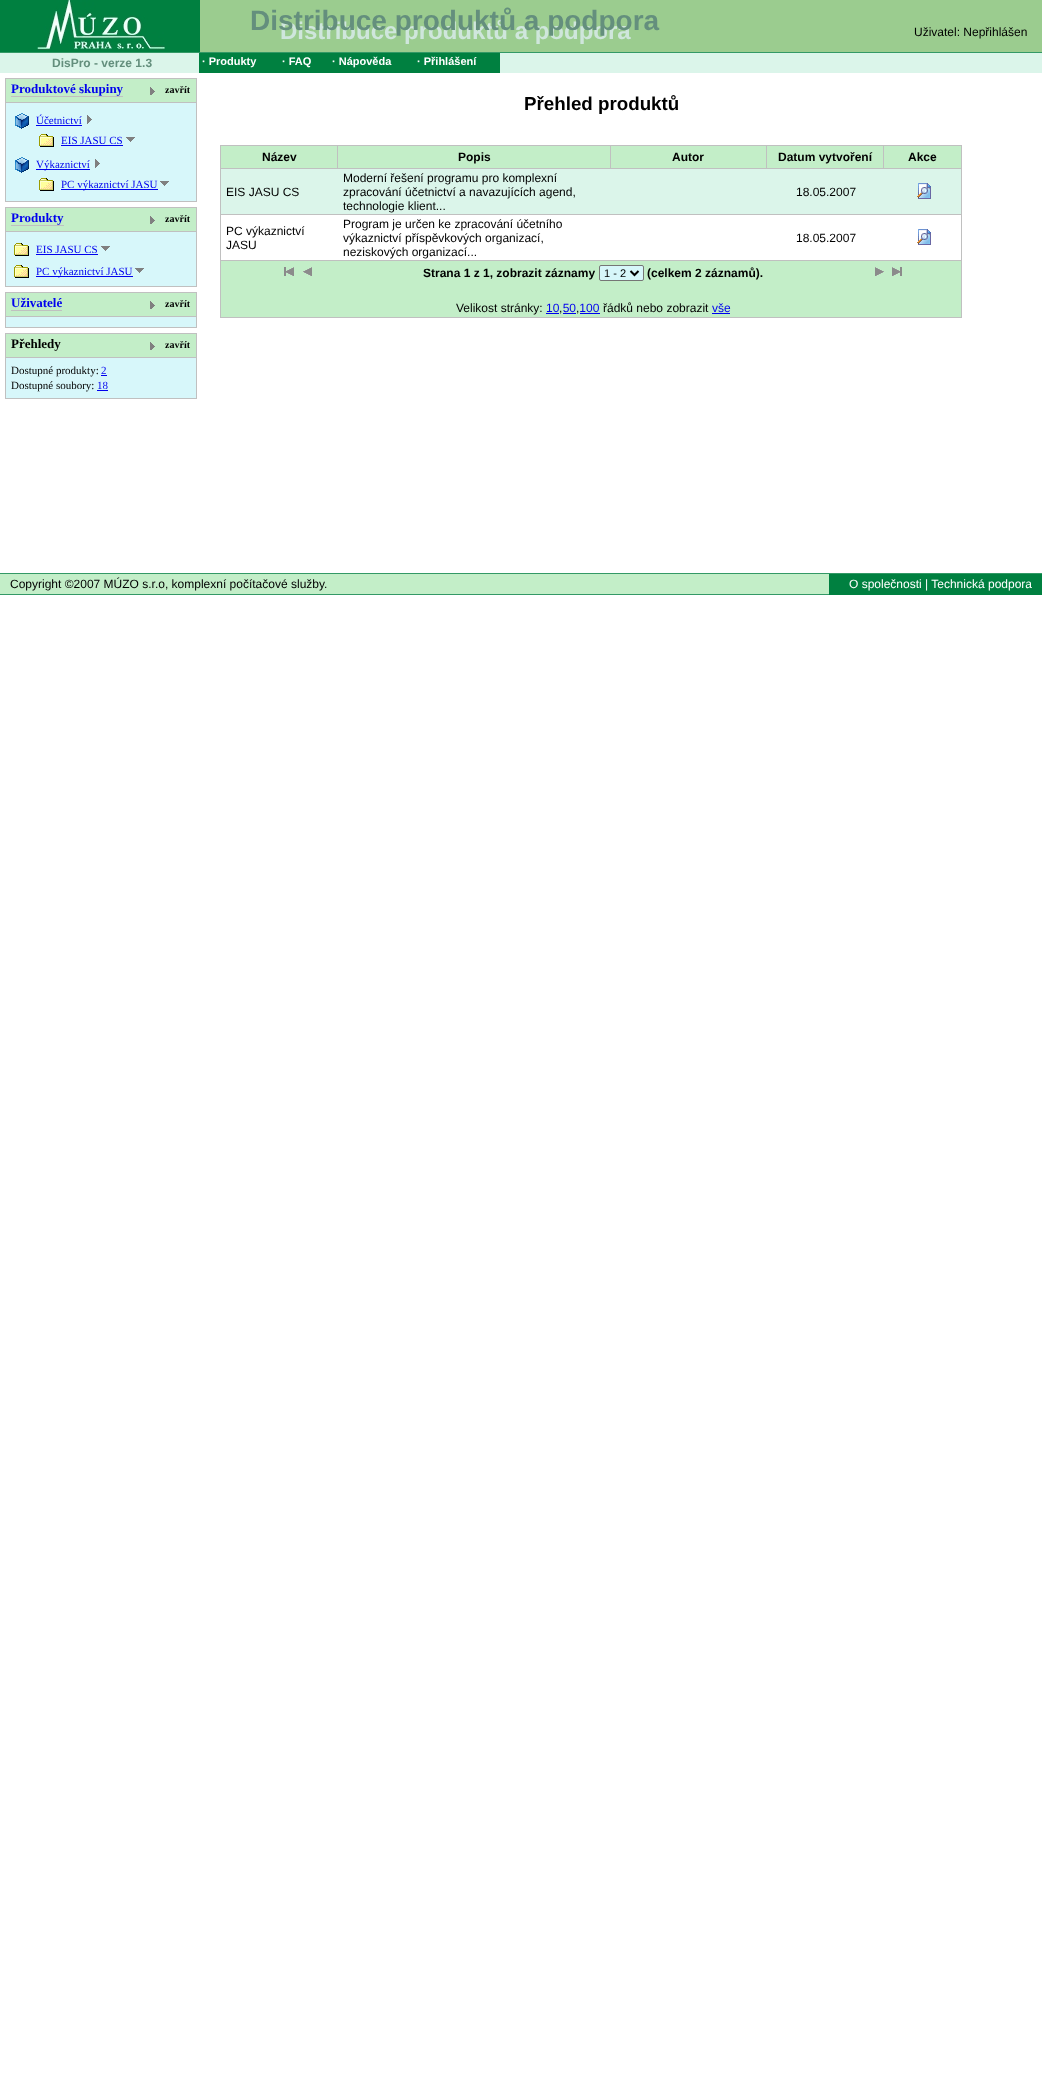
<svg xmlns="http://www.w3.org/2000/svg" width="1042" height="2085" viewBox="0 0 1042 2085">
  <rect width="100%" height="100%" fill="#ffffff"/>
  <rect x="200" y="0" width="842" height="52" fill="#9bcc8f"/>
  <rect x="0" y="52" width="1042" height="1" fill="#339966"/>
  <rect x="0" y="0" width="200" height="52" fill="#008040"/>
  <image x="37" y="0" width="128" height="50" href="img1.png"/>
  <text x="280" y="39" font-family="Liberation Sans" font-size="24" font-weight="bold" fill="#cfe6dc">Distribuce produktů a podpora</text>
  <text x="250" y="30" font-family="Liberation Sans" font-size="28" font-weight="bold" fill="#648f7d">Distribuce produktů a podpora</text>
  <text x="914" y="36" font-family="Liberation Sans" font-size="12" fill="#000000">Uživatel: Nepřihlášen</text>
  <rect x="0" y="53" width="1042" height="20" fill="#dbf5ea"/>
  <rect x="199" y="53" width="301" height="20" fill="#008040"/>
  <text x="52" y="67" font-family="Liberation Sans" font-size="12" font-weight="bold" fill="#648f7d">DisPro - verze 1.3</text>
  <text x="202" y="65" font-family="Liberation Sans" font-size="11" font-weight="bold" fill="#ffffff">· Produkty</text>
  <text x="282" y="65" font-family="Liberation Sans" font-size="11" font-weight="bold" fill="#ffffff">· FAQ</text>
  <text x="332" y="65" font-family="Liberation Sans" font-size="11" font-weight="bold" fill="#ffffff">· Nápověda</text>
  <text x="417" y="65" font-family="Liberation Sans" font-size="11" font-weight="bold" fill="#ffffff">· Přihlášení</text>
  <rect x="6" y="103" width="190" height="98" fill="#d7f7fa"/>
  <rect x="5.5" y="78.5" width="191" height="123" fill="none" stroke="#c0c0c0"/>
  <rect x="6" y="79" width="190" height="23" fill="#c3eec8"/>
  <rect x="6" y="102" width="190" height="1" fill="#c0c0c0"/>
  <text x="11" y="93" font-family="Liberation Serif" font-size="13" font-weight="bold" fill="#0000ee">Produktové skupiny</text>
  <rect x="11" y="96" width="112" height="1" fill="#c0c0c0"/>
  <image x="150" y="87" width="5" height="8" href="img2.png"/>
  <text x="165" y="93" font-family="Liberation Serif" font-size="10" font-weight="bold" fill="#000000">zavřít</text>
  <image x="15" y="113" width="14" height="16" href="img3.png"/>
  <text x="36" y="124" font-family="Liberation Serif" font-size="11" fill="#0000ee">Účetnictví</text>
  <rect x="36" y="125" width="46" height="1" fill="#0000ee"/>
  <image x="87" y="115" width="5" height="9" href="img4.png"/>
  <image x="39" y="134" width="15" height="13" href="img5.png"/>
  <text x="61" y="144" font-family="Liberation Serif" font-size="11" fill="#0000ee">EIS JASU CS</text>
  <rect x="61" y="145" width="62" height="1" fill="#0000ee"/>
  <image x="126" y="137" width="9" height="5" href="img6.png"/>
  <image x="15" y="157" width="14" height="16" href="img3.png"/>
  <rect x="36" y="169" width="54" height="1" fill="#0000ee"/>
  <text x="36" y="168" font-family="Liberation Serif" font-size="11" fill="#0000ee">Výkaznictví</text>
  <image x="95" y="159" width="5" height="9" href="img4.png"/>
  <image x="39" y="178" width="15" height="13" href="img5.png"/>
  <rect x="61" y="189" width="97" height="1" fill="#0000ee"/>
  <text x="61" y="188" font-family="Liberation Serif" font-size="11" fill="#0000ee">PC výkaznictví JASU</text>
  <image x="160" y="181" width="9" height="5" href="img6.png"/>
  <rect x="6" y="232" width="190" height="54" fill="#d7f7fa"/>
  <rect x="5.5" y="207.5" width="191" height="79" fill="none" stroke="#c0c0c0"/>
  <rect x="6" y="208" width="190" height="23" fill="#c3eec8"/>
  <rect x="6" y="231" width="190" height="1" fill="#c0c0c0"/>
  <text x="11" y="222" font-family="Liberation Serif" font-size="13" font-weight="bold" fill="#0000ee">Produkty</text>
  <rect x="11" y="225" width="53" height="1" fill="#c0c0c0"/>
  <image x="150" y="216" width="5" height="8" href="img2.png"/>
  <text x="165" y="222" font-family="Liberation Serif" font-size="10" font-weight="bold" fill="#000000">zavřít</text>
  <image x="14" y="243" width="15" height="13" href="img5.png"/>
  <text x="36" y="253" font-family="Liberation Serif" font-size="11" fill="#0000ee">EIS JASU CS</text>
  <rect x="36" y="254" width="62" height="1" fill="#0000ee"/>
  <image x="101" y="246" width="9" height="5" href="img6.png"/>
  <image x="14" y="265" width="15" height="13" href="img5.png"/>
  <rect x="36" y="276" width="97" height="1" fill="#0000ee"/>
  <text x="36" y="275" font-family="Liberation Serif" font-size="11" fill="#0000ee">PC výkaznictví JASU</text>
  <image x="135" y="268" width="9" height="5" href="img6.png"/>
  <rect x="6" y="317" width="190" height="10" fill="#d7f7fa"/>
  <rect x="5.5" y="292.5" width="191" height="35" fill="none" stroke="#c0c0c0"/>
  <rect x="6" y="293" width="190" height="23" fill="#c3eec8"/>
  <rect x="6" y="316" width="190" height="1" fill="#c0c0c0"/>
  <text x="11" y="307" font-family="Liberation Serif" font-size="13" font-weight="bold" fill="#0000ee">Uživatelé</text>
  <rect x="11" y="310" width="51" height="1" fill="#c0c0c0"/>
  <image x="150" y="301" width="5" height="8" href="img2.png"/>
  <text x="165" y="307" font-family="Liberation Serif" font-size="10" font-weight="bold" fill="#000000">zavřít</text>
  <rect x="6" y="358" width="190" height="40" fill="#d7f7fa"/>
  <rect x="5.5" y="333.5" width="191" height="65" fill="none" stroke="#c0c0c0"/>
  <rect x="6" y="334" width="190" height="23" fill="#c3eec8"/>
  <rect x="6" y="357" width="190" height="1" fill="#c0c0c0"/>
  <text x="11" y="348" font-family="Liberation Serif" font-size="13" font-weight="bold" fill="#000000">Přehledy</text>
  <image x="150" y="342" width="5" height="8" href="img2.png"/>
  <text x="165" y="348" font-family="Liberation Serif" font-size="10" font-weight="bold" fill="#000000">zavřít</text>
  <text x="11" y="374" font-family="Liberation Serif" font-size="11" fill="#000000">Dostupné produkty:</text>
  <text x="101" y="374" font-family="Liberation Serif" font-size="11" fill="#0000ee">2</text>
  <rect x="101" y="375" width="6" height="1" fill="#0000ee"/>
  <text x="11" y="389" font-family="Liberation Serif" font-size="11" fill="#000000">Dostupné soubory:</text>
  <text x="97" y="389" font-family="Liberation Serif" font-size="11" fill="#0000ee">18</text>
  <rect x="97" y="390" width="11" height="1" fill="#0000ee"/>
  <text x="524" y="110" font-family="Liberation Sans" font-size="18.75" font-weight="bold" fill="#000000">Přehled produktů</text>
  <rect x="220" y="145" width="742" height="173" fill="#c0c0c0"/>
  <rect x="221" y="146" width="116" height="22" fill="#c3eec8"/>
  <text x="262" y="161" font-family="Liberation Sans" font-size="12" font-weight="bold" fill="#000000">Název</text>
  <rect x="338" y="146" width="272" height="22" fill="#c3eec8"/>
  <text x="458" y="161" font-family="Liberation Sans" font-size="12" font-weight="bold" fill="#000000">Popis</text>
  <rect x="611" y="146" width="155" height="22" fill="#c3eec8"/>
  <text x="672" y="161" font-family="Liberation Sans" font-size="12" font-weight="bold" fill="#000000">Autor</text>
  <rect x="767" y="146" width="116" height="22" fill="#c3eec8"/>
  <text x="778" y="161" font-family="Liberation Sans" font-size="12" font-weight="bold" fill="#000000">Datum vytvoření</text>
  <rect x="884" y="146" width="77" height="22" fill="#c3eec8"/>
  <text x="908" y="161" font-family="Liberation Sans" font-size="12" font-weight="bold" fill="#000000">Akce</text>
  <rect x="221" y="169" width="740" height="45" fill="#dbf5ea"/>
  <text x="226" y="196" font-family="Liberation Sans" font-size="12" fill="#000000">EIS JASU CS</text>
  <text x="343" y="182" font-family="Liberation Sans" font-size="12" fill="#000000">Moderní řešení programu pro komplexní</text>
  <text x="343" y="196" font-family="Liberation Sans" font-size="12" fill="#000000">zpracování účetnictví a navazujících agend,</text>
  <text x="343" y="210" font-family="Liberation Sans" font-size="12" fill="#000000">technologie klient...</text>
  <text x="796" y="196" font-family="Liberation Sans" font-size="12" fill="#000000">18.05.2007</text>
  <image x="917" y="183" width="14" height="16" href="img7.png"/>
  <rect x="221" y="215" width="740" height="45" fill="#ffffff"/>
  <text x="226" y="235" font-family="Liberation Sans" font-size="12" fill="#000000">PC výkaznictví</text>
  <text x="226" y="249" font-family="Liberation Sans" font-size="12" fill="#000000">JASU</text>
  <text x="343" y="228" font-family="Liberation Sans" font-size="12" fill="#000000">Program je určen ke zpracování účetního</text>
  <text x="343" y="242" font-family="Liberation Sans" font-size="12" fill="#000000">výkaznictví příspěvkových organizací,</text>
  <text x="343" y="256" font-family="Liberation Sans" font-size="12" fill="#000000">neziskových organizací...</text>
  <text x="796" y="242" font-family="Liberation Sans" font-size="12" fill="#000000">18.05.2007</text>
  <image x="917" y="229" width="14" height="16" href="img8.png"/>
  <rect x="221" y="261" width="740" height="56" fill="#c3eec8"/>
  <image x="284" y="267" width="10" height="9" href="img9.png"/>
  <image x="303" y="267" width="9" height="9" href="img10.png"/>
  <text x="423" y="277" font-family="Liberation Sans" font-size="12" font-weight="bold" fill="#000000">Strana 1 z 1, zobrazit záznamy</text>
  <rect x="599.5" y="265.5" width="44" height="15" rx="1.5" fill="#d7f7fa" stroke="#767676"/>
  <path d="M630.5 271L634.5 275L638.5 271" fill="none" stroke="#000000" stroke-width="2"/>
  <text x="604" y="277" font-family="Liberation Sans" font-size="11" fill="#000000">1 - 2</text>
  <text x="647" y="277" font-family="Liberation Sans" font-size="12" font-weight="bold" fill="#000000">(celkem 2 záznamů).</text>
  <image x="875" y="267" width="9" height="9" href="img11.png"/>
  <image x="892" y="267" width="10" height="9" href="img12.png"/>
  <text x="456" y="312" font-family="Liberation Sans" font-size="12" fill="#000000">Velikost stránky:</text>
  <text x="546" y="312" font-family="Liberation Sans" font-size="12" fill="#0000ee">10 50 100</text>
  <rect x="546" y="313" width="13" height="1" fill="#0000ee"/>
  <text x="603" y="312" font-family="Liberation Sans" font-size="12" fill="#000000">řádků nebo zobrazit</text>
  <text x="712" y="312" font-family="Liberation Sans" font-size="12" fill="#0000ee">vše</text>
  <rect x="712" y="313" width="18" height="1" fill="#0000ee"/>
  <text x="559" y="312" font-family="Liberation Sans" font-size="12" fill="#000000">,</text>
  <rect x="563" y="313" width="13" height="1" fill="#0000ee"/>
  <text x="576" y="312" font-family="Liberation Sans" font-size="12" fill="#000000">,</text>
  <rect x="580" y="313" width="20" height="1" fill="#0000ee"/>
  <rect x="0" y="574" width="829" height="20" fill="#c3eec8"/>
  <rect x="0" y="573" width="1042" height="1" fill="#339966"/>
  <rect x="0" y="594" width="829" height="1" fill="#339966"/>
  <text x="10" y="588" font-family="Liberation Sans" font-size="12" fill="#000000">Copyright ©2007 MÚZO s.r.o, komplexní počítačové služby.</text>
  <rect x="829" y="574" width="213" height="21" fill="#008040"/>
  <text x="849" y="588" font-family="Liberation Sans" font-size="12" fill="#ffffff">O společnosti | Technická podpora</text>
</svg>
